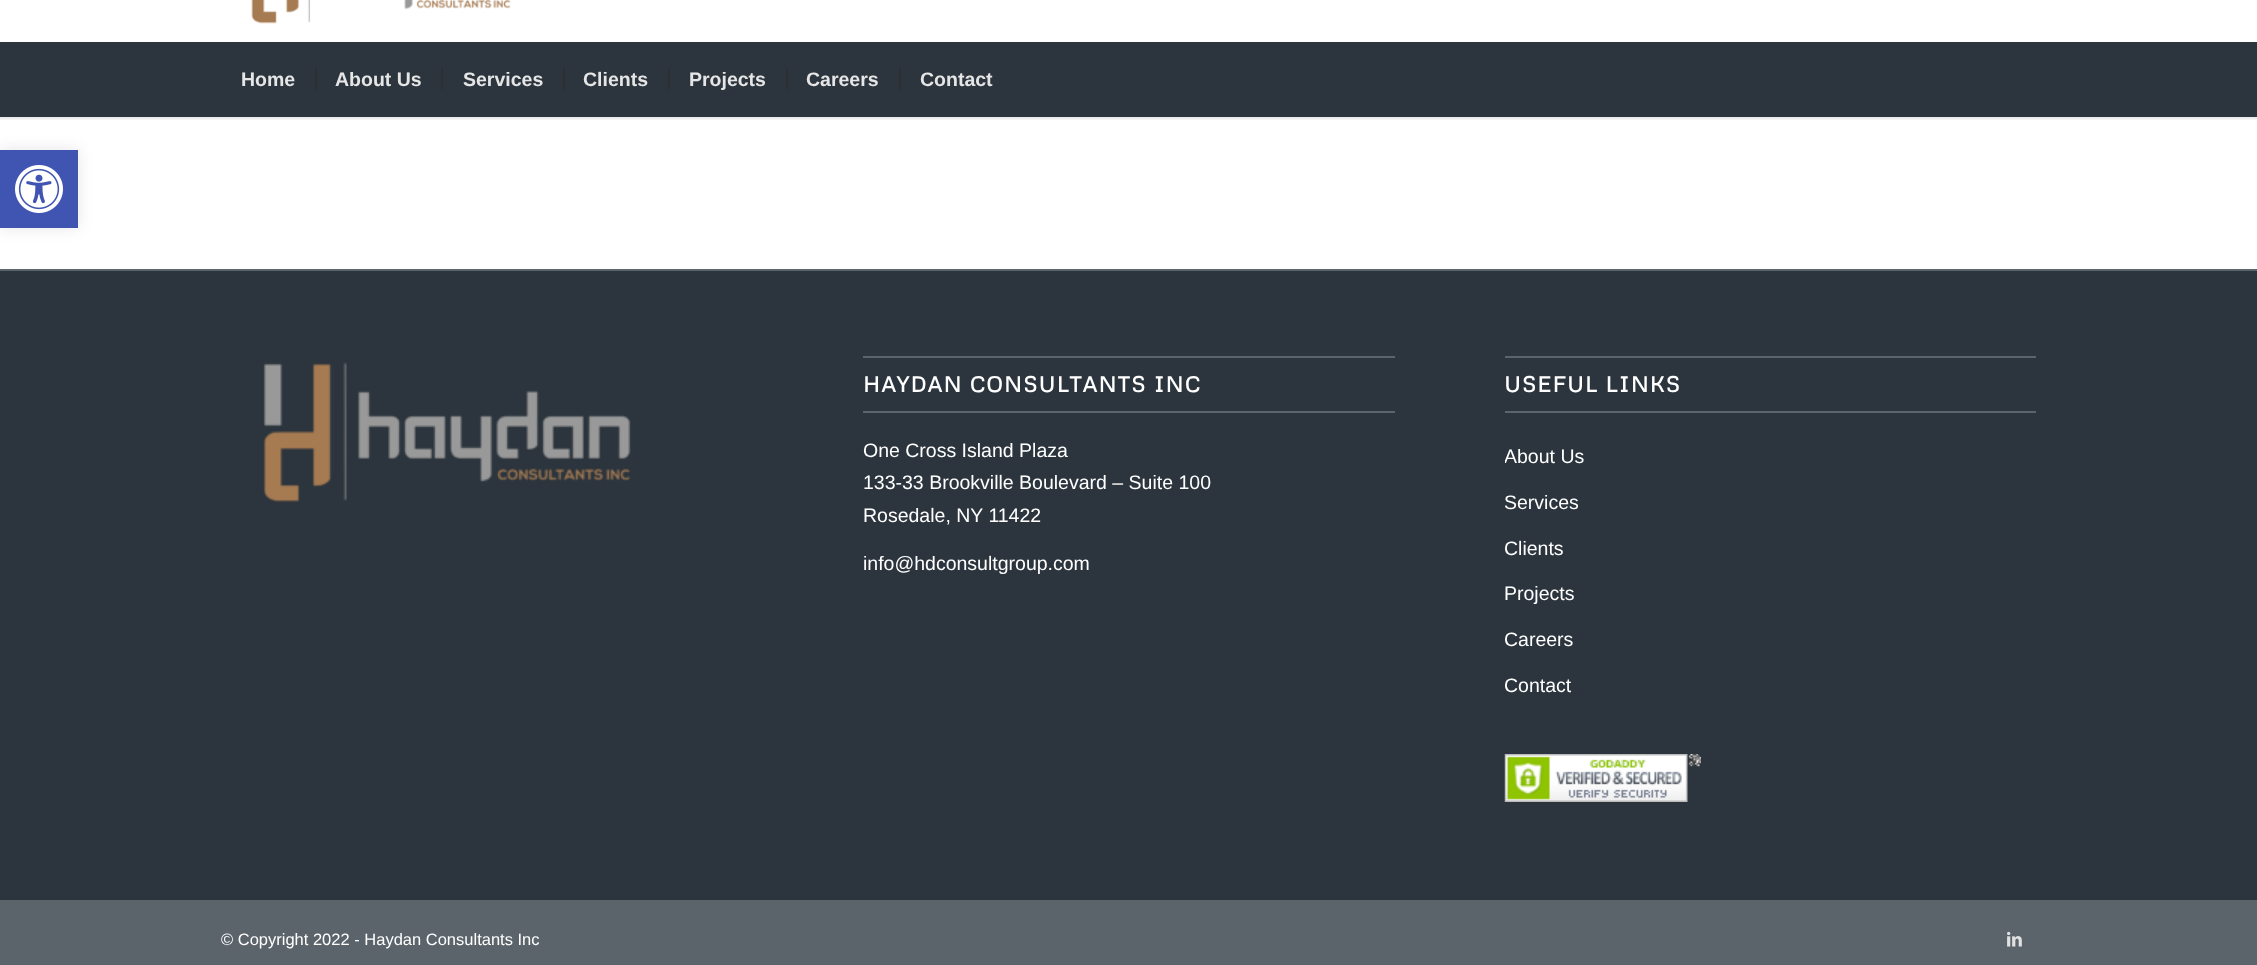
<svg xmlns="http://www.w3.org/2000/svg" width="2257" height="965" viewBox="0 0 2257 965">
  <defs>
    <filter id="blur1" x="-50%" y="-200%" width="200%" height="500%"><feGaussianBlur stdDeviation="7.5"/></filter>
    <clipPath id="clip1"><rect x="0" y="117" width="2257" height="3"/></clipPath>
    <filter id="blur2" x="-50%" y="-200%" width="200%" height="500%"><feGaussianBlur stdDeviation="1.5"/></filter>
    <clipPath id="clip2"><rect x="1505" y="338" width="531" height="372"/></clipPath>
  </defs>
  <rect width="100%" height="100%" fill="#ffffff"/>
  <rect x="0" y="150" width="78" height="78" fill="#000000" fill-opacity="0.1" filter="url(#blur1)"/>
  <rect x="0" y="150" width="78" height="78" fill="#4054b2"/>
  <image x="15" y="165" width="48" height="48" href="img1.png"/>
  <g clip-path="url(#clip1)">
    <rect x="-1" y="-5" width="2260" height="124" fill="#000000" fill-opacity="0.1" filter="url(#blur2)"/>
  </g>
  <image x="251" y="0" width="260" height="24" href="img2.png"/>
  <rect x="0" y="42" width="2257" height="75" fill="#2c353d"/>
  <text x="241" y="86" font-family="Liberation Sans" font-size="19.5" font-weight="bold" fill="#e6e6e6">Home</text>
  <text x="335" y="86" font-family="Liberation Sans" font-size="19.5" font-weight="bold" fill="#e6e6e6">About Us</text>
  <rect x="315" y="68" width="2" height="22" fill="#2c3033"/>
  <text x="463" y="86" font-family="Liberation Sans" font-size="19.5" font-weight="bold" fill="#e6e6e6">Services</text>
  <rect x="441" y="68" width="2" height="22" fill="#2c3033"/>
  <text x="583" y="86" font-family="Liberation Sans" font-size="19.5" font-weight="bold" fill="#e6e6e6">Clients</text>
  <rect x="563" y="68" width="2" height="22" fill="#2c3033"/>
  <text x="689" y="86" font-family="Liberation Sans" font-size="19.5" font-weight="bold" fill="#e6e6e6">Projects</text>
  <rect x="668" y="68" width="2" height="22" fill="#2c3033"/>
  <text x="806" y="86" font-family="Liberation Sans" font-size="19.5" font-weight="bold" fill="#e6e6e6">Careers</text>
  <rect x="786" y="68" width="2" height="22" fill="#2c3033"/>
  <text x="920" y="86" font-family="Liberation Sans" font-size="19.5" font-weight="bold" fill="#e6e6e6">Contact</text>
  <rect x="899" y="68" width="2" height="22" fill="#2c3033"/>
  <rect x="0" y="271" width="2257" height="629" fill="#2c353d"/>
  <rect x="0" y="269" width="2257" height="2" fill="#5b646b"/>
  <image x="263" y="362" width="368" height="141" href="img3.png"/>
  <rect x="863" y="356" width="532" height="2" fill="#5b646b"/>
  <rect x="863" y="411" width="532" height="2" fill="#5b646b"/>
  <text x="863" y="392" font-family="Metrophobic" font-size="21.5" font-weight="bold" letter-spacing="1.5" fill="#ffffff">HAYDAN CONSULTANTS INC</text>
  <text x="863" y="457" font-family="Liberation Sans" font-size="19.5" fill="#ffffff">One Cross Island Plaza</text>
  <text x="863" y="489" font-family="Liberation Sans" font-size="19.5" fill="#ffffff">133-33 Brookville Boulevard – Suite 100</text>
  <text x="863" y="522" font-family="Liberation Sans" font-size="19.5" fill="#ffffff">Rosedale, NY 11422</text>
  <text x="863" y="570" font-family="Liberation Sans" font-size="19.5" fill="#ffffff">info@hdconsultgroup.com</text>
  <rect x="1505" y="356" width="531" height="2" fill="#5b646b"/>
  <rect x="1505" y="411" width="531" height="2" fill="#5b646b"/>
  <text x="1504" y="392" font-family="Metrophobic" font-size="21.5" font-weight="bold" letter-spacing="1.5" fill="#ffffff">USEFUL LINKS</text>
  <g clip-path="url(#clip2)">
    <text x="1504" y="463" font-family="Liberation Sans" font-size="19.5" fill="#ffffff">About Us</text>
  </g>
  <text x="1504" y="509" font-family="Liberation Sans" font-size="19.5" fill="#ffffff">Services</text>
  <g clip-path="url(#clip2)">
    <text x="1504" y="555" font-family="Liberation Sans" font-size="19.5" fill="#ffffff">Clients</text>
  </g>
  <text x="1504" y="600" font-family="Liberation Sans" font-size="19.5" fill="#ffffff">Projects</text>
  <g clip-path="url(#clip2)">
    <text x="1504" y="646" font-family="Liberation Sans" font-size="19.5" fill="#ffffff">Careers</text>
    <text x="1504" y="692" font-family="Liberation Sans" font-size="19.5" fill="#ffffff">Contact</text>
  </g>
  <image x="1504" y="754" width="197" height="48" href="img4.png"/>
  <rect x="0" y="900" width="2257" height="65" fill="#5b646b"/>
  <text x="221" y="945" font-family="Liberation Sans" font-size="16.5" fill="#ffffff">© Copyright 2022 - Haydan Consultants Inc</text>
  <image x="2007" y="931" width="15" height="16" href="img5.png"/>
</svg>
